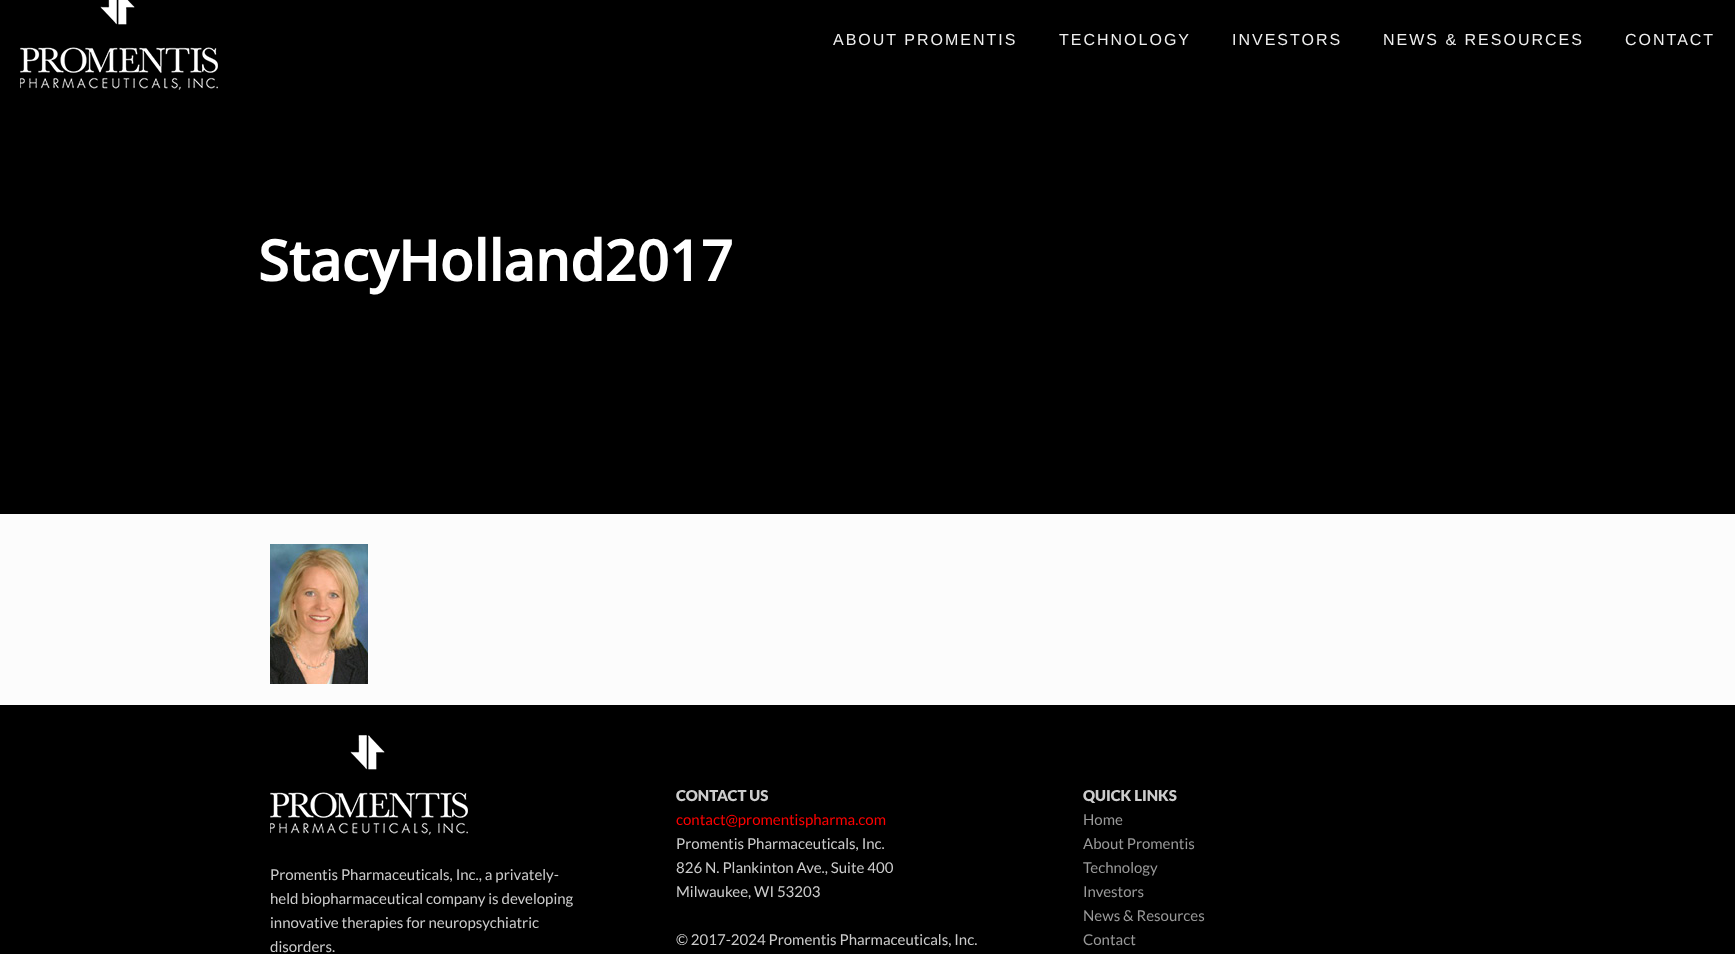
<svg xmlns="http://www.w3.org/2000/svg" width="1735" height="954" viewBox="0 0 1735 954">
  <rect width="100%" height="100%" fill="#fcfcfc"/>
  <rect x="0" y="0" width="1735" height="514" fill="#000000"/>
  <image x="20" y="0" width="198" height="90" href="img1.png"/>
  <text x="833" y="45" font-family="Liberation Sans" font-size="16" letter-spacing="2" fill="#efefef">ABOUT PROMENTIS</text>
  <text x="1059" y="45" font-family="Liberation Sans" font-size="16" letter-spacing="2" fill="#efefef">TECHNOLOGY</text>
  <text x="1232" y="45" font-family="Liberation Sans" font-size="16" letter-spacing="2" fill="#efefef">INVESTORS</text>
  <text x="1383" y="45" font-family="Liberation Sans" font-size="16" letter-spacing="2" fill="#efefef">NEWS &amp; RESOURCES</text>
  <text x="1625" y="45" font-family="Liberation Sans" font-size="16" letter-spacing="2" fill="#efefef">CONTACT</text>
  <text x="258" y="281" font-family="Open Sans" font-size="56" font-weight="bold" fill="#ffffff">StacyHolland2017</text>
  <image x="270" y="544" width="98" height="140" href="img2.png"/>
  <rect x="0" y="705" width="1735" height="249" fill="#000000"/>
  <image x="270" y="735" width="198" height="100" href="img3.png"/>
  <text x="270" y="880" font-family="Lato" font-size="15" fill="#cccccc">Promentis Pharmaceuticals, Inc., a privately-</text>
  <text x="270" y="904" font-family="Lato" font-size="15" fill="#cccccc">held biopharmaceutical company is developing</text>
  <text x="270" y="928" font-family="Lato" font-size="15" fill="#cccccc">innovative therapies for neuropsychiatric</text>
  <text x="270" y="952" font-family="Lato" font-size="15" fill="#cccccc">disorders.</text>
  <text x="676" y="801" font-family="Lato" font-size="15" font-weight="900" fill="#cccccc">CONTACT US</text>
  <text x="676" y="825" font-family="Lato" font-size="15" fill="#ff0000">contact@promentispharma.com</text>
  <text x="676" y="849" font-family="Lato" font-size="15" fill="#cccccc">Promentis Pharmaceuticals, Inc.</text>
  <text x="676" y="873" font-family="Lato" font-size="15" fill="#cccccc">826 N. Plankinton Ave., Suite 400</text>
  <text x="676" y="897" font-family="Lato" font-size="15" fill="#cccccc">Milwaukee, WI 53203</text>
  <text x="676" y="945" font-family="Lato" font-size="15" fill="#cccccc">© 2017-2024 Promentis Pharmaceuticals, Inc.</text>
  <text x="1083" y="801" font-family="Lato" font-size="15" font-weight="900" fill="#cccccc">QUICK LINKS</text>
  <text x="1083" y="825" font-family="Lato" font-size="15" fill="#999999">Home</text>
  <text x="1083" y="849" font-family="Lato" font-size="15" fill="#999999">About Promentis</text>
  <text x="1083" y="873" font-family="Lato" font-size="15" fill="#999999">Technology</text>
  <text x="1083" y="897" font-family="Lato" font-size="15" fill="#999999">Investors</text>
  <text x="1083" y="921" font-family="Lato" font-size="15" fill="#999999">News &amp; Resources</text>
  <text x="1083" y="945" font-family="Lato" font-size="15" fill="#999999">Contact</text>
</svg>
